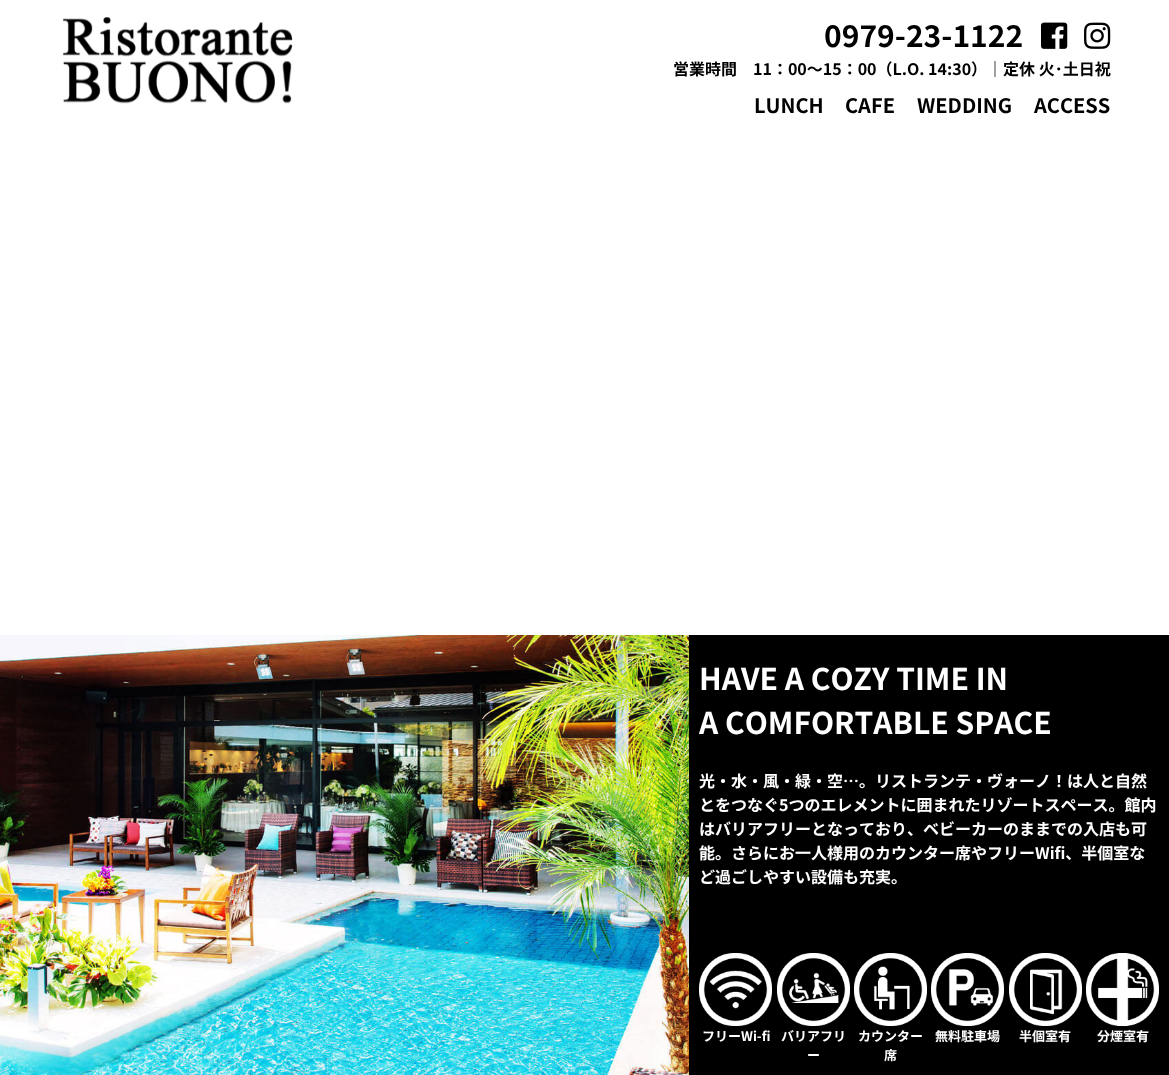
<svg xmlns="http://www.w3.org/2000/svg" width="1169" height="1075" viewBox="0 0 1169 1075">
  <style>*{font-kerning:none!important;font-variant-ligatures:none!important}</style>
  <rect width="100%" height="100%" fill="#ffffff"/>
  <image x="63" y="17" width="230" height="87" href="img1.png"/>
  <text x="824" y="47" font-family="Noto Sans JP" font-size="30" font-weight="100" fill="#000000">0979-23-1122</text>
  <image x="1041" y="22" width="27" height="27" href="img2.png"/>
  <image x="1084" y="22" width="27" height="27" href="img3.png"/>
  <text x="673" y="75" font-family="Noto Sans JP" font-size="16" font-weight="100" fill="#000000">営業時間　11：00～15：00（L.O. 14:30）｜定休 火･土日祝</text>
  <text x="754" y="113" font-family="Noto Sans JP" font-size="20" font-weight="100" fill="#000000">LUNCH</text>
  <text x="845" y="113" font-family="Noto Sans JP" font-size="20" font-weight="100" fill="#000000">CAFE</text>
  <text x="917" y="113" font-family="Noto Sans JP" font-size="20" font-weight="100" fill="#000000">WEDDING</text>
  <text x="1034" y="113" font-family="Noto Sans JP" font-size="20" font-weight="100" fill="#000000">ACCESS</text>
  <image x="0" y="635" width="689" height="440" href="img4.png"/>
  <rect x="689" y="635" width="480" height="440" fill="#000000"/>
  <text x="699" y="690" font-family="Noto Sans JP" font-size="30" font-weight="100" fill="#ffffff">HAVE A COZY TIME IN</text>
  <text x="699" y="734" font-family="Noto Sans JP" font-size="30" font-weight="100" fill="#ffffff">A COMFORTABLE SPACE</text>
  <text x="699" y="787" font-family="Noto Sans JP" font-size="16" font-weight="100" fill="#ffffff">光・水・風・緑・空…。リストランテ・ヴォーノ！は人と自然</text>
  <text x="699" y="811" font-family="Noto Sans JP" font-size="16" font-weight="100" fill="#ffffff">とをつなぐ5つのエレメントに囲まれたリゾートスペース。館内</text>
  <text x="699" y="835" font-family="Noto Sans JP" font-size="16" font-weight="100" fill="#ffffff">はバリアフリーとなっており、ベビーカーのままでの入店も可</text>
  <text x="699" y="859" font-family="Noto Sans JP" font-size="16" font-weight="100" fill="#ffffff">能。さらにお一人様用のカウンター席やフリーWifi、半個室な</text>
  <text x="699" y="883" font-family="Noto Sans JP" font-size="16" font-weight="100" fill="#ffffff">ど過ごしやすい設備も充実。</text>
  <image x="699" y="953" width="73" height="73" href="img5.png"/>
  <text x="702" y="1041" font-family="Noto Sans JP" font-size="13" font-weight="100" fill="#ffffff">フリーWi-fi</text>
  <image x="777" y="953" width="73" height="73" href="img6.png"/>
  <text x="781" y="1041" font-family="Noto Sans JP" font-size="13" font-weight="100" fill="#ffffff">バリアフリ</text>
  <text x="807" y="1060" font-family="Noto Sans JP" font-size="13" font-weight="100" fill="#ffffff">ー</text>
  <image x="854" y="953" width="73" height="73" href="img7.png"/>
  <text x="858" y="1041" font-family="Noto Sans JP" font-size="13" font-weight="100" fill="#ffffff">カウンター</text>
  <text x="884" y="1060" font-family="Noto Sans JP" font-size="13" font-weight="100" fill="#ffffff">席</text>
  <image x="931" y="953" width="73" height="73" href="img8.png"/>
  <text x="935" y="1041" font-family="Noto Sans JP" font-size="13" font-weight="100" fill="#ffffff">無料駐車場</text>
  <image x="1009" y="953" width="73" height="73" href="img9.png"/>
  <text x="1019" y="1041" font-family="Noto Sans JP" font-size="13" font-weight="100" fill="#ffffff">半個室有</text>
  <image x="1086" y="953" width="73" height="73" href="img10.png"/>
  <text x="1097" y="1041" font-family="Noto Sans JP" font-size="13" font-weight="100" fill="#ffffff">分煙室有</text>
</svg>
